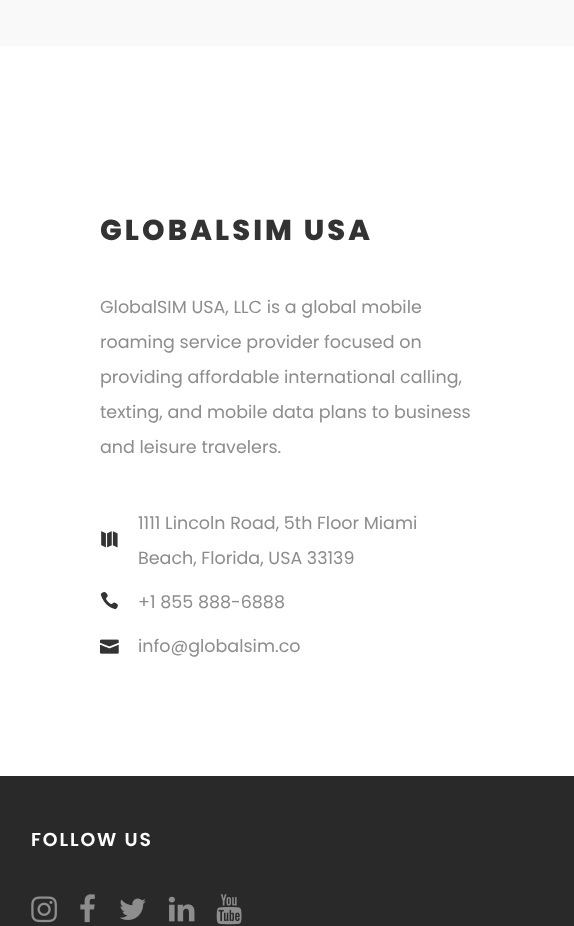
<svg xmlns="http://www.w3.org/2000/svg" width="574" height="926" viewBox="0 0 574 926">
  <rect width="100%" height="100%" fill="#ffffff"/>
  <rect x="0" y="0" width="574" height="46" fill="#f9f9f9"/>
  <text x="100" y="240" font-family="Poppins" font-size="28.75" font-weight="800" letter-spacing="3.1" fill="#333333">GLOBALSIM USA</text>
  <text x="100" y="313" font-family="Poppins" font-size="17.5" fill="#8d8d8d">GlobalSIM USA, LLC is a global mobile</text>
  <text x="100" y="348" font-family="Poppins" font-size="17.5" fill="#8d8d8d">roaming service provider focused on</text>
  <text x="100" y="383" font-family="Poppins" font-size="17.5" fill="#8d8d8d">providing affordable international calling,</text>
  <text x="100" y="418" font-family="Poppins" font-size="17.5" fill="#8d8d8d">texting, and mobile data plans to business</text>
  <text x="100" y="453" font-family="Poppins" font-size="17.5" fill="#8d8d8d">and leisure travelers.</text>
  <image x="101" y="531" width="17" height="17" href="img1.png"/>
  <text x="138" y="529" font-family="Poppins" font-size="17.5" fill="#8d8d8d">1111 Lincoln Road, 5th Floor Miami</text>
  <text x="138" y="564" font-family="Poppins" font-size="17.5" fill="#8d8d8d">Beach, Florida, USA 33139</text>
  <image x="100" y="592" width="18" height="18" href="img2.png"/>
  <text x="138" y="608" font-family="Poppins" font-size="17.5" fill="#8d8d8d">+1 855 888-6888</text>
  <image x="100" y="639" width="19" height="15" href="img3.png"/>
  <text x="138" y="652" font-family="Poppins" font-size="17.5" fill="#8d8d8d">info@globalsim.co</text>
  <rect x="0" y="776" width="574" height="150" fill="#292929"/>
  <text x="31" y="846" font-family="Poppins" font-size="18.75" font-weight="600" letter-spacing="1.9" fill="#ffffff">FOLLOW US</text>
  <image x="31" y="896" width="26" height="27" href="img4.png"/>
  <image x="80" y="894" width="15" height="29" href="img5.png"/>
  <image x="119" y="898" width="27" height="22" href="img6.png"/>
  <image x="168" y="896" width="27" height="26" href="img7.png"/>
  <image x="216" y="894" width="26" height="31" href="img8.png"/>
</svg>
